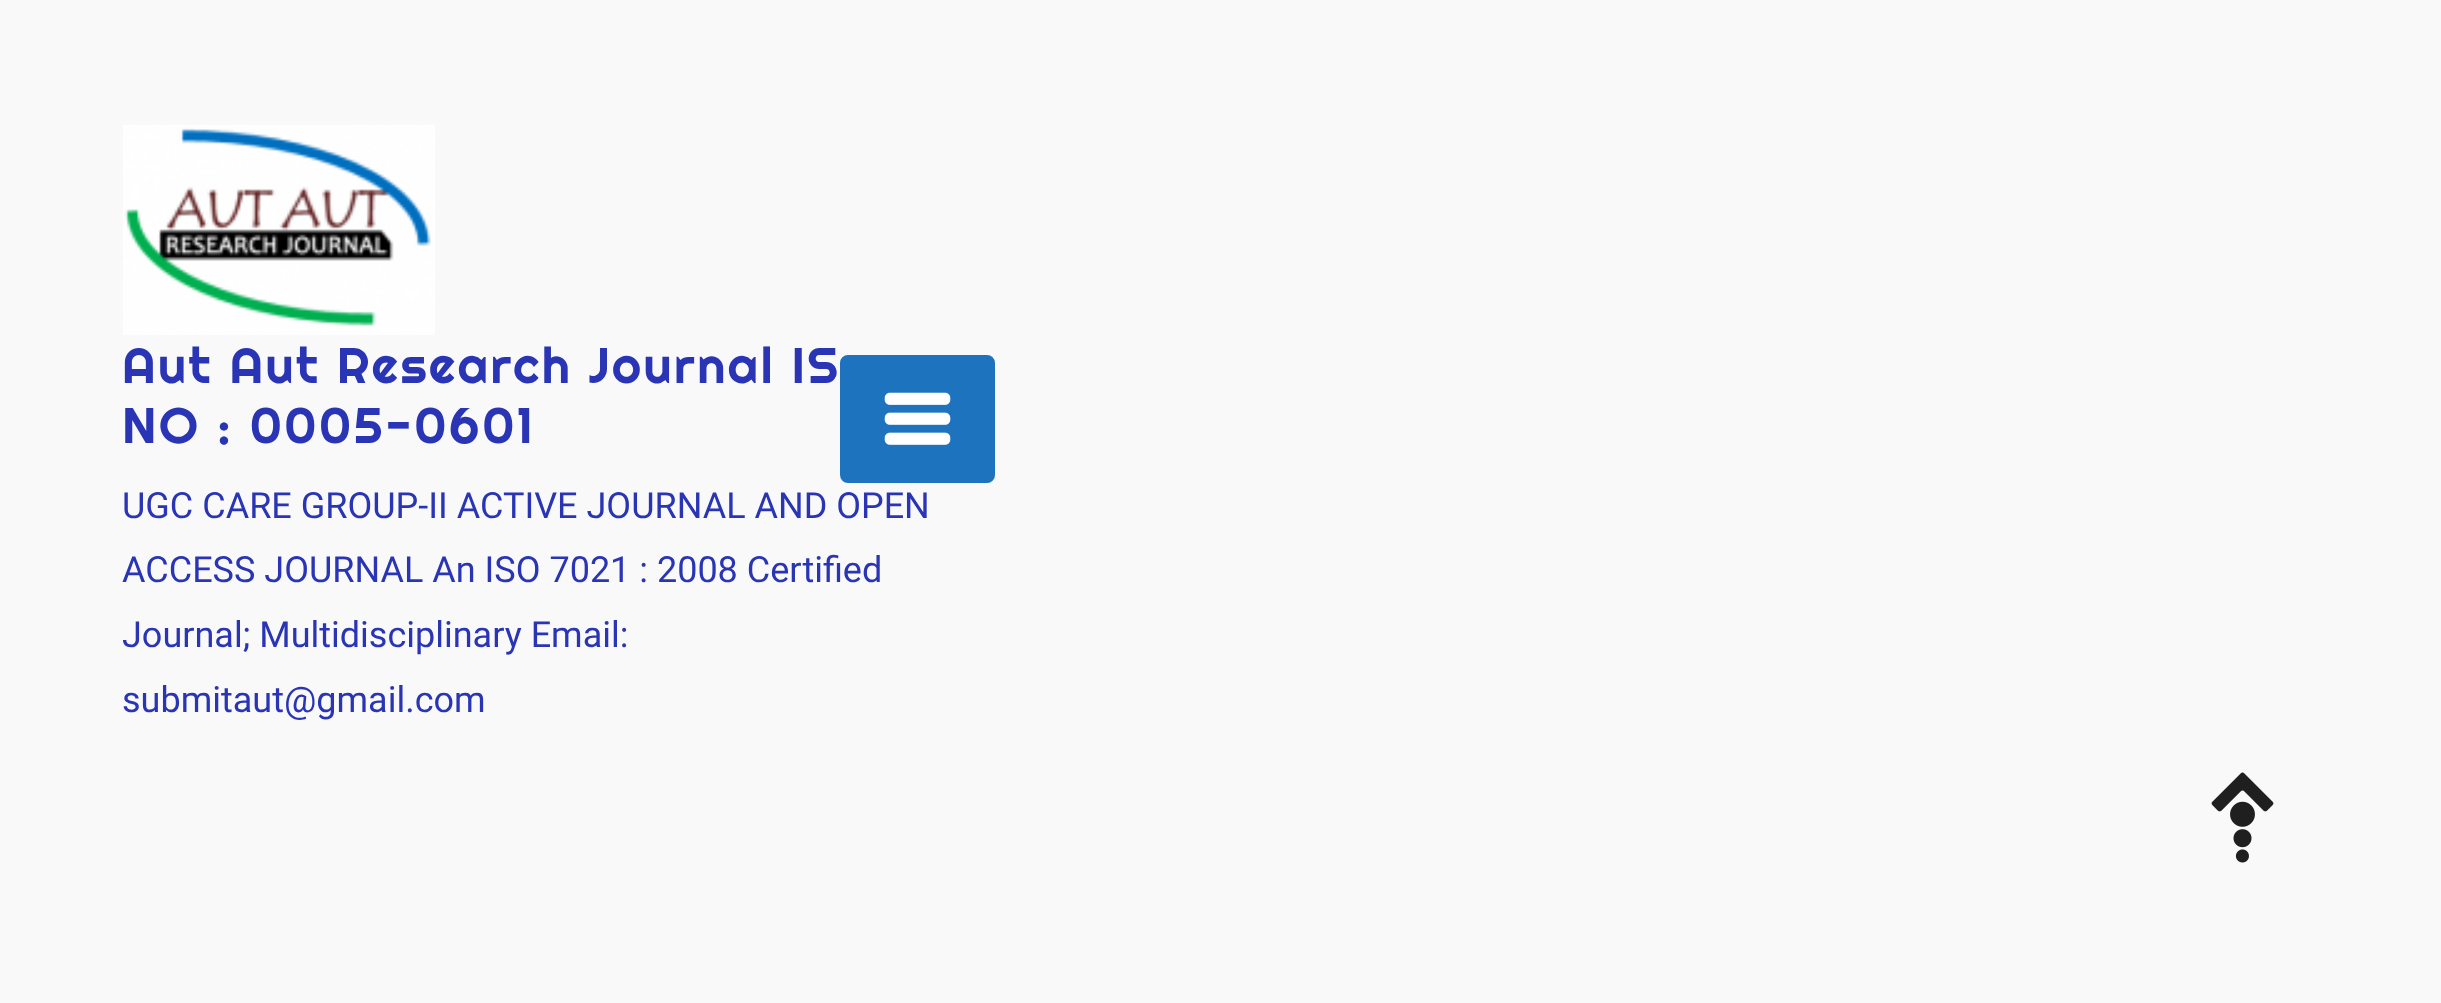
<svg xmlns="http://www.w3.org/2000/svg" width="2441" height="1003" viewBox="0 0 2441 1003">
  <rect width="100%" height="100%" fill="#f9f9f9"/>
  <image x="123" y="125" width="312" height="210" href="img1.png"/>
  <text x="122" y="383" font-family="Righteous" font-size="50" letter-spacing="2.5" fill="#2935b5">Aut Aut Research Journal IS</text>
  <text x="122" y="443" font-family="Righteous" font-size="50" letter-spacing="2.5" fill="#2935b5">NO : 0005-0601</text>
  <rect x="841.5" y="356.5" width="152" height="125" rx="6.5" fill="#1e73be" stroke="#1e73be" stroke-width="3"/>
  <image x="884" y="392" width="67" height="53" href="img2.png"/>
  <text x="122" y="518" font-family="Roboto" font-size="36" fill="#2935b5">UGC CARE GROUP-II ACTIVE JOURNAL AND OPEN</text>
  <text x="122" y="582" font-family="Roboto" font-size="36" fill="#2935b5">ACCESS JOURNAL An ISO 7021 : 2008 Certified</text>
  <text x="122" y="647" font-family="Roboto" font-size="36" fill="#2935b5">Journal; Multidisciplinary Email:</text>
  <text x="122" y="712" font-family="Roboto" font-size="36" fill="#2935b5">submitaut@gmail.com</text>
  <image x="2211" y="772" width="63" height="91" href="img3.png"/>
</svg>
